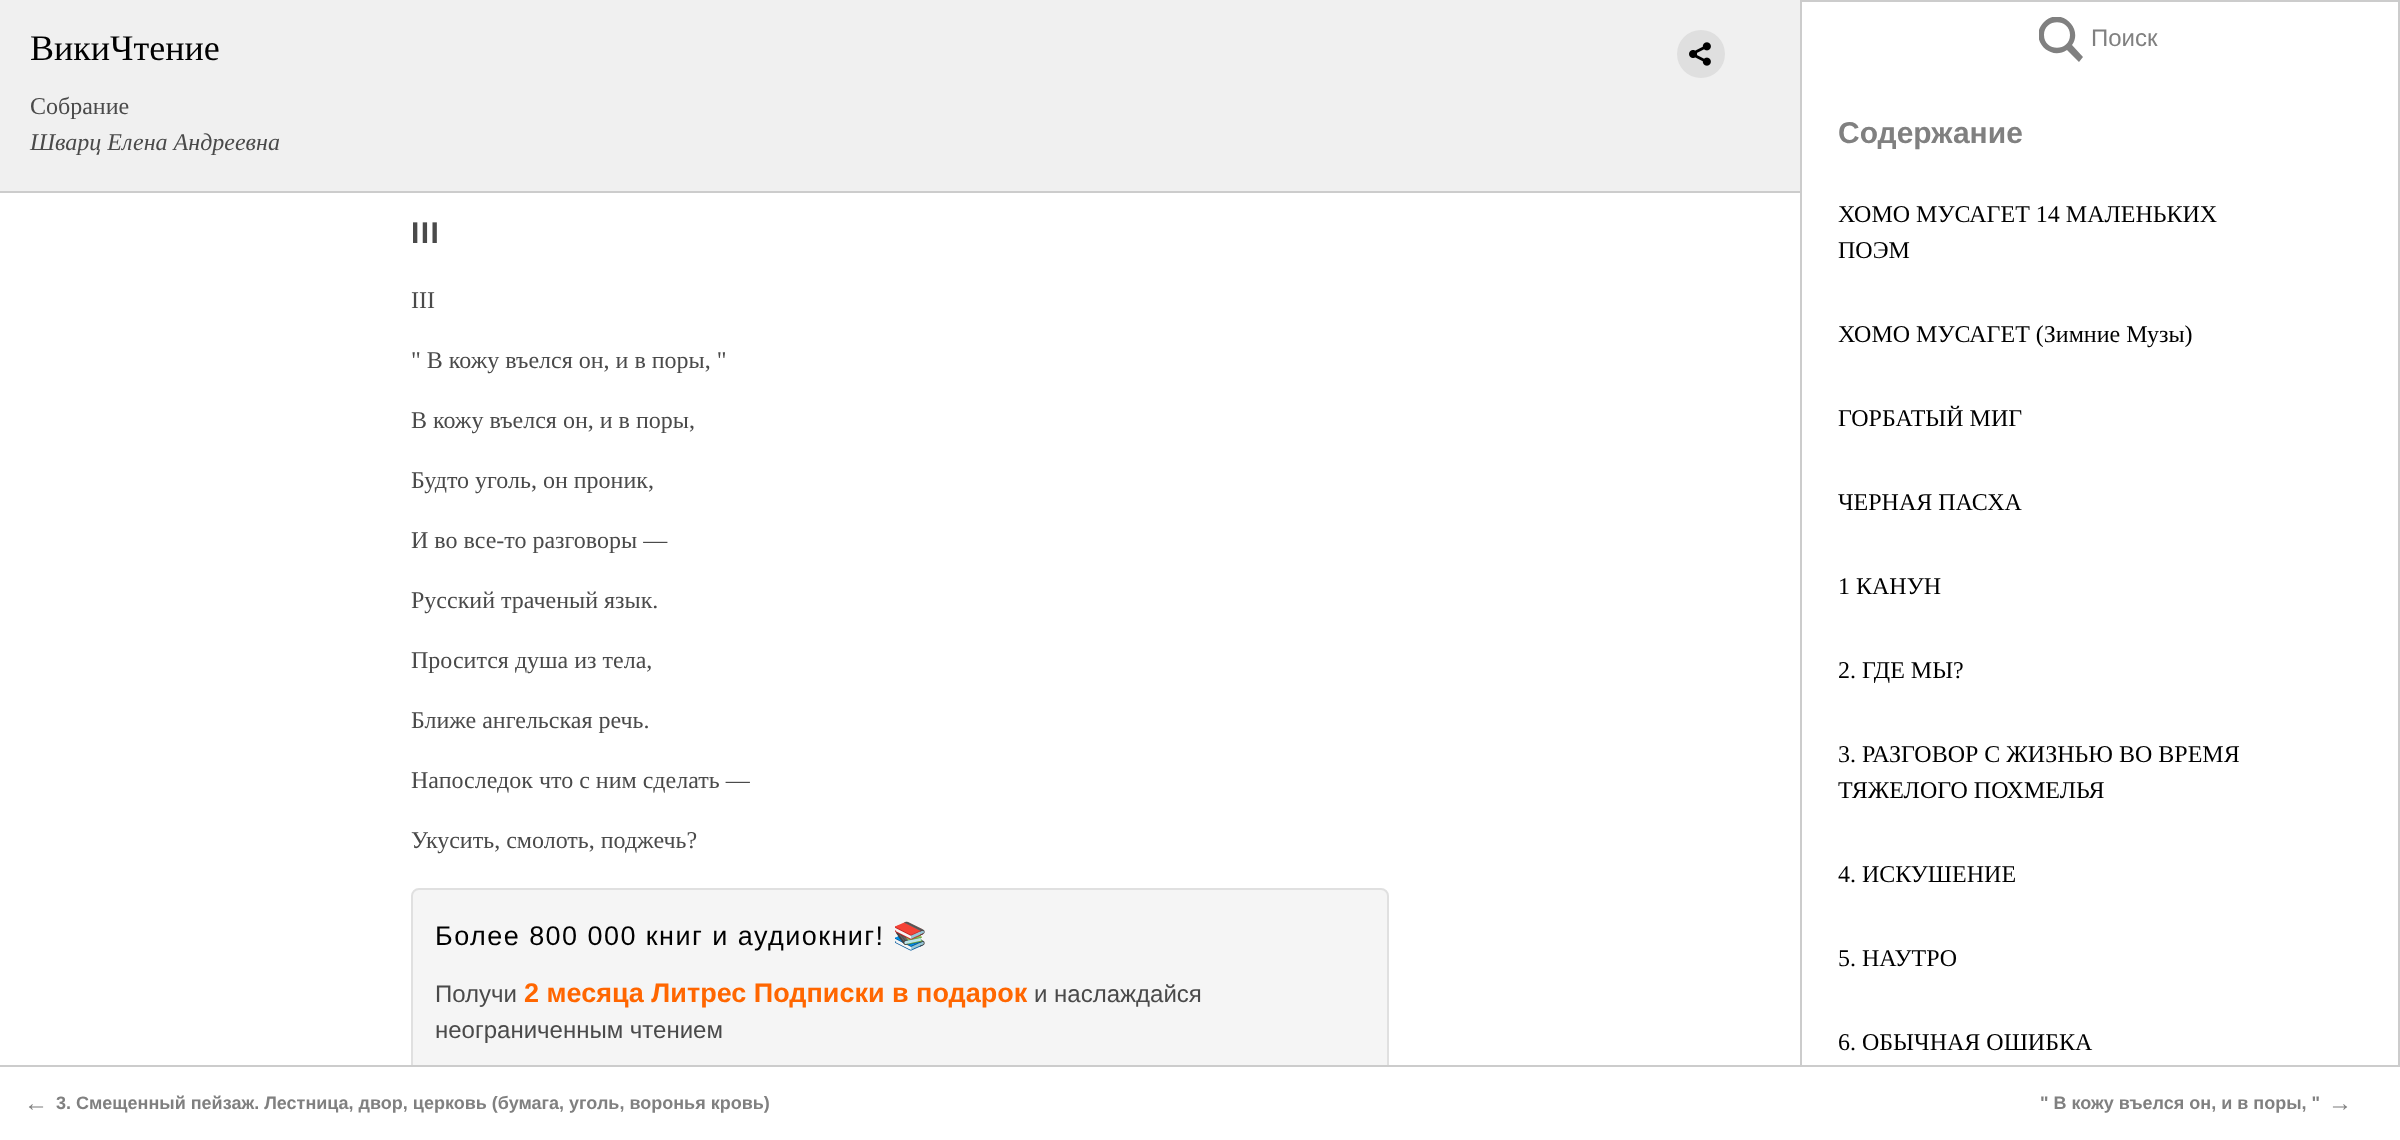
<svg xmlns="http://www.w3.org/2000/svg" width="2400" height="1140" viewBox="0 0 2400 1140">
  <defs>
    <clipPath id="clip1"><rect x="2039" y="17" width="45" height="45"/></clipPath>
    <clipPath id="clip2"><rect x="1838" y="197" width="525" height="942"/></clipPath>
  </defs>
  <rect width="100%" height="100%" fill="#ffffff"/>
  <rect x="0" y="0" width="1800" height="191" fill="#f0f0f0"/>
  <rect x="0" y="191" width="1800" height="2" fill="#cccccc"/>
  <text x="30" y="60" font-family="Liberation Serif" font-size="36" fill="#000000">ВикиЧтение</text>
  <circle cx="1701" cy="54" r="24" fill="#dfdfdf"/>
  <image x="1689" y="42" width="22" height="24" href="img1.png"/>
  <text x="30" y="114" font-family="Liberation Serif" font-size="24" fill="#4a4a4a">Собрание</text>
  <text x="30" y="150" font-family="Liberation Serif" font-size="24" font-style="italic" fill="#4a4a4a">Шварц Елена Андреевна</text>
  <rect x="1801" y="1" width="598" height="1138" fill="none" stroke="#cccccc" stroke-width="2"/>
  <g clip-path="url(#clip1)">
    <path d="M2083 57L2072 45C2084 28 2060 6 2044 22C2028 38 2049 62 2067 50L2079 62ZM2044 35C2044 18 2070 18 2070 35C2070 52 2044 52 2044 35Z" fill="#808080"/>
  </g>
  <text x="2091" y="46" font-family="Liberation Sans" font-size="24" fill="#808080">Поиск</text>
  <text x="1838" y="143" font-family="Liberation Sans" font-size="30" font-weight="bold" fill="#808080">Содержание</text>
  <text x="1838" y="222" font-family="Liberation Serif" font-size="24" fill="#000000">ХОМО МУСАГЕТ 14 МАЛЕНЬКИХ</text>
  <text x="1838" y="258" font-family="Liberation Serif" font-size="24" fill="#000000">ПОЭМ</text>
  <text x="1838" y="342" font-family="Liberation Serif" font-size="24" fill="#000000">ХОМО МУСАГЕТ (Зимние Музы)</text>
  <text x="1838" y="426" font-family="Liberation Serif" font-size="24" fill="#000000">ГОРБАТЫЙ МИГ</text>
  <text x="1838" y="510" font-family="Liberation Serif" font-size="24" fill="#000000">ЧЕРНАЯ ПАСХА</text>
  <text x="1838" y="594" font-family="Liberation Serif" font-size="24" fill="#000000">1 КАНУН</text>
  <text x="1838" y="678" font-family="Liberation Serif" font-size="24" fill="#000000">2. ГДЕ МЫ?</text>
  <text x="1838" y="762" font-family="Liberation Serif" font-size="24" fill="#000000">3. РАЗГОВОР С ЖИЗНЬЮ ВО ВРЕМЯ</text>
  <g clip-path="url(#clip2)">
    <text x="1838" y="798" font-family="Liberation Serif" font-size="24" fill="#000000">ТЯЖЕЛОГО ПОХМЕЛЬЯ</text>
  </g>
  <text x="1838" y="882" font-family="Liberation Serif" font-size="24" fill="#000000">4. ИСКУШЕНИЕ</text>
  <text x="1838" y="966" font-family="Liberation Serif" font-size="24" fill="#000000">5. НАУТРО</text>
  <text x="1838" y="1050" font-family="Liberation Serif" font-size="24" fill="#000000">6. ОБЫЧНАЯ ОШИБКА</text>
  <text x="411" y="243" font-family="Liberation Sans" font-size="30" font-weight="bold" letter-spacing="1.45" fill="#4a4a4a">III</text>
  <text x="411" y="308" font-family="Liberation Serif" font-size="24" fill="#4a4a4a">III</text>
  <text x="411" y="368" font-family="Liberation Serif" font-size="24" fill="#4a4a4a">" В кожу въелся он, и в поры, "</text>
  <text x="411" y="428" font-family="Liberation Serif" font-size="24" fill="#4a4a4a">В кожу въелся он, и в поры,</text>
  <text x="411" y="488" font-family="Liberation Serif" font-size="24" fill="#4a4a4a">Будто уголь, он проник,</text>
  <text x="411" y="548" font-family="Liberation Serif" font-size="24" fill="#4a4a4a">И во все-то разговоры —</text>
  <text x="411" y="608" font-family="Liberation Serif" font-size="24" fill="#4a4a4a">Русский траченый язык.</text>
  <text x="411" y="668" font-family="Liberation Serif" font-size="24" fill="#4a4a4a">Просится душа из тела,</text>
  <text x="411" y="728" font-family="Liberation Serif" font-size="24" fill="#4a4a4a">Ближе ангельская речь.</text>
  <text x="411" y="788" font-family="Liberation Serif" font-size="24" fill="#4a4a4a">Напоследок что с ним сделать —</text>
  <text x="411" y="848" font-family="Liberation Serif" font-size="24" fill="#4a4a4a">Укусить, смолоть, поджечь?</text>
  <rect x="412" y="889" width="976" height="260" rx="7" fill="#f5f5f5" stroke="#e0e0e0" stroke-width="2"/>
  <text x="435" y="945" font-family="Liberation Sans" font-size="27" letter-spacing="1.45" fill="#000000">Более 800 000 книг и аудиокниг!</text>
  <text x="893" y="945" font-family="Noto Color Emoji" font-size="27" letter-spacing="1.45" fill="#000000">📚</text>
  <text x="435" y="1002" font-family="Liberation Sans" font-size="24" fill="#4a4a4a">Получи</text>
  <text x="524" y="1002" font-family="Liberation Sans" font-size="27" font-weight="bold" fill="#ff6600">2 месяца Литрес Подписки в подарок</text>
  <text x="1034" y="1002" font-family="Liberation Sans" font-size="24" fill="#4a4a4a">и наслаждайся</text>
  <text x="435" y="1038" font-family="Liberation Sans" font-size="24" fill="#4a4a4a">неограниченным чтением</text>
  <rect x="411" y="1067" width="1989" height="73" fill="#ffffff"/>
  <rect x="0" y="1065" width="2400" height="2" fill="#cccccc"/>
  <text x="24" y="1111" font-family="Liberation Sans" font-size="24" font-weight="bold" fill="#808080">←</text>
  <text x="56" y="1109" font-family="Liberation Sans" font-size="18" font-weight="bold" fill="#808080">3. Смещенный пейзаж. Лестница, двор, церковь (бумага, уголь, воронья кровь)</text>
  <text x="2040" y="1109" font-family="Liberation Sans" font-size="18" font-weight="bold" fill="#808080">" В кожу въелся он, и в поры, "</text>
  <text x="2328" y="1111" font-family="Liberation Sans" font-size="24" font-weight="bold" fill="#808080">→</text>
</svg>
